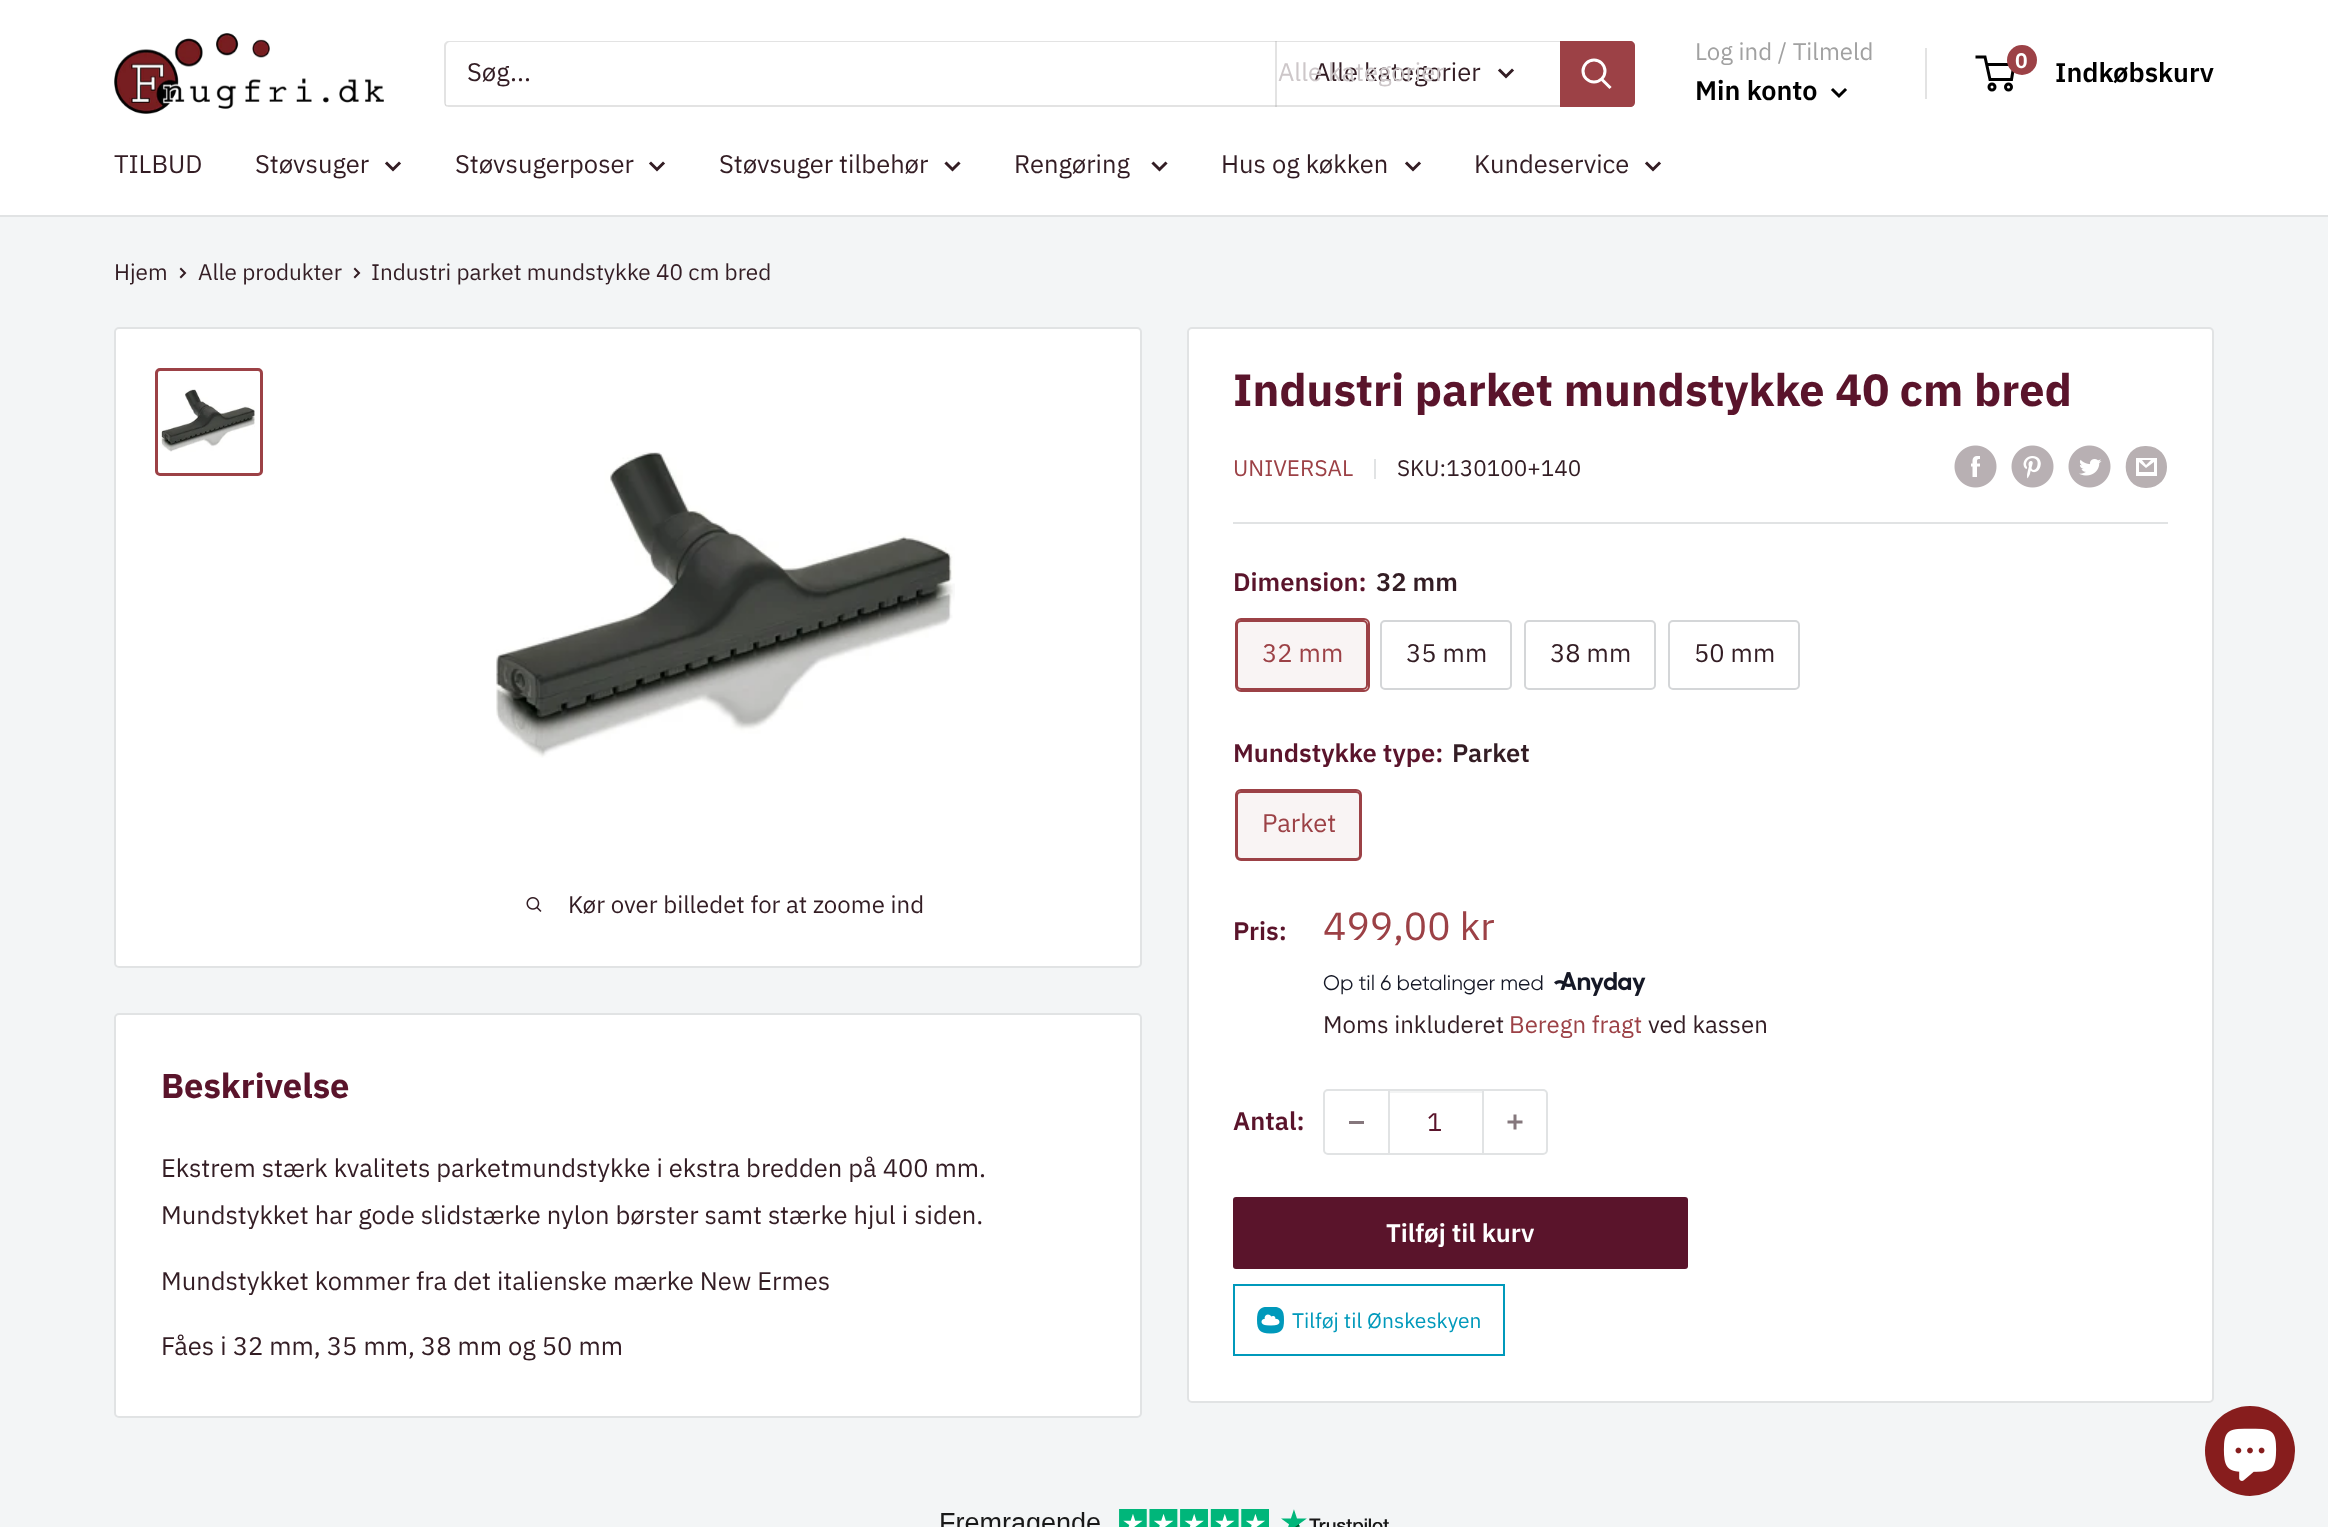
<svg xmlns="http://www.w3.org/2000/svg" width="2328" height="1527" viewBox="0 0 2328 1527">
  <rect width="100%" height="100%" fill="#f3f5f6"/>
  <rect x="0" y="0" width="2328" height="215" fill="#ffffff"/>
  <image x="114" y="33" width="270" height="81" href="img1.png"/>
  <path d="M445 104C445 106 447 107 449 107H1630C1633 107 1635 105 1635 102V46C1635 45 1635 44 1634 43V100C1634 103 1631 105 1629 105H447Z" fill="#e3e3e3"/>
  <path d="M450 42H1633C1632 41 1631 41 1630 41H449C446 41 444 43 444 46V102C444 104 445 106 447 107C446 106 446 105 446 104V46C446 44 448 42 450 42Z" fill="#a1a1a1" fill-opacity="0.3"/>
  <text x="467" y="81" font-family="IBM Plex Sans" font-size="25.5" fill="#331d24">Søg...</text>
  <rect x="1275" y="41" width="2" height="66" fill="#a1a1a1" fill-opacity="0.3"/>
  <text x="1314" y="81" font-family="IBM Plex Sans" font-size="25.5" fill="#331d24">Alle kategorier</text>
  <text x="1278" y="81" font-family="IBM Plex Sans" font-size="25.5" fill="#cdc7c9">Alle kategorier</text>
  <path d="M1512 70.5L1506 76.5L1500 70.5" fill="none" stroke="#331d24" stroke-width="3" stroke-linecap="square"/>
  <path d="M1560 41H1630C1633 41 1635 43 1635 46V102C1635 105 1633 107 1630 107H1560Z" fill="#9c4146"/>
  <path d="M1609.5 87L1602 79.5" fill="none" stroke="#ffffff" stroke-width="3" stroke-linecap="square"/>
  <circle cx="1594" cy="71" r="11" fill="none" stroke="#ffffff" stroke-width="3"/>
  <text x="1695" y="60" font-family="IBM Plex Sans" font-size="24" fill="#a1a1a1">Log ind / Tilmeld</text>
  <rect x="1925" y="48" width="2" height="51" fill="#e3e3e3"/>
  <text x="1695" y="100" font-family="IBM Plex Sans" font-size="27" font-weight="600" fill="#000000">Min konto</text>
  <path d="M1845 90L1839 96L1833 90" fill="none" stroke="#000000" stroke-width="3" stroke-linecap="square"/>
  <circle cx="1992" cy="87" r="3" fill="none" stroke="#000000" stroke-width="3"/>
  <circle cx="2008.5" cy="87" r="3" fill="none" stroke="#000000" stroke-width="3"/>
  <path d="M1986.5 64.5H2014L2011.5 79.5H1990L1985 57H1975.5" fill="none" stroke="#000000" stroke-width="3"/>
  <circle cx="2022" cy="60" r="15" fill="#9c4146"/>
  <text x="2015" y="68" font-family="IBM Plex Sans" font-size="21" font-weight="600" fill="#ffffff">0</text>
  <text x="2055" y="82" font-family="IBM Plex Sans" font-size="27" font-weight="600" fill="#000000">Indkøbskurv</text>
  <rect x="0" y="215" width="2328" height="2" fill="#e1e3e4"/>
  <text x="114" y="173" font-family="IBM Plex Sans" font-size="25.5" fill="#331d24">TILBUD</text>
  <text x="255" y="173" font-family="IBM Plex Sans" font-size="25.5" fill="#331d24">Støvsuger</text>
  <path d="M399 163.5L393 169.5L387 163.5" fill="none" stroke="#331d24" stroke-width="3" stroke-linecap="square"/>
  <text x="455" y="173" font-family="IBM Plex Sans" font-size="25.5" fill="#331d24">Støvsugerposer</text>
  <path d="M663 163.5L657 169.5L651 163.5" fill="none" stroke="#331d24" stroke-width="3" stroke-linecap="square"/>
  <text x="719" y="173" font-family="IBM Plex Sans" font-size="25.5" fill="#331d24">Støvsuger tilbehør</text>
  <path d="M958.5 163.5L952.5 169.5L946.5 163.5" fill="none" stroke="#331d24" stroke-width="3" stroke-linecap="square"/>
  <text x="1014" y="173" font-family="IBM Plex Sans" font-size="25.5" fill="#331d24">Rengøring</text>
  <path d="M1165.5 163.5L1159.5 169.5L1153.5 163.5" fill="none" stroke="#331d24" stroke-width="3" stroke-linecap="square"/>
  <text x="1221" y="173" font-family="IBM Plex Sans" font-size="25.5" fill="#331d24">Hus og køkken</text>
  <path d="M1419 163.5L1413 169.5L1407 163.5" fill="none" stroke="#331d24" stroke-width="3" stroke-linecap="square"/>
  <text x="1474" y="173" font-family="IBM Plex Sans" font-size="25.5" fill="#331d24">Kundeservice</text>
  <path d="M1659 163.5L1653 169.5L1647 163.5" fill="none" stroke="#331d24" stroke-width="3" stroke-linecap="square"/>
  <text x="114" y="280" font-family="IBM Plex Sans" font-size="22.5" fill="#331d24">Hjem</text>
  <path d="M181 269L185 273L181 277" fill="none" stroke="#331d24" stroke-width="2" stroke-linecap="square"/>
  <text x="198" y="280" font-family="IBM Plex Sans" font-size="22.5" fill="#331d24">Alle produkter</text>
  <path d="M355 269L359 273L355 277" fill="none" stroke="#331d24" stroke-width="2" stroke-linecap="square"/>
  <text x="371" y="280" font-family="IBM Plex Sans" font-size="22.5" fill="#331d24">Industri parket mundstykke 40 cm bred</text>
  <rect x="115" y="328" width="1026" height="639" rx="4" fill="#ffffff" stroke="#e1e3e4" stroke-width="2"/>
  <rect x="156.5" y="369.5" width="105" height="105" rx="3.5" fill="none" stroke="#9c4146" stroke-width="3"/>
  <image x="160" y="389" width="95" height="63" href="img2.png"/>
  <image x="496" y="452" width="459" height="306" href="img3.png"/>
  <image x="526" y="897" width="16" height="15" href="img4.png"/>
  <text x="568" y="913" font-family="IBM Plex Sans" font-size="24" fill="#331d24">Kør over billedet for at zoome ind</text>
  <rect x="1188" y="328" width="1025" height="1074" rx="4" fill="#ffffff" stroke="#e1e3e4" stroke-width="2"/>
  <text x="1233" y="406" font-family="IBM Plex Sans" font-size="45" font-weight="bold" fill="#5a142b">Industri parket mundstykke 40 cm bred</text>
  <text x="1233" y="476" font-family="IBM Plex Sans" font-size="22.5" fill="#9c4146">UNIVERSAL</text>
  <rect x="1374" y="459" width="2" height="20" fill="#e1e3e4"/>
  <text x="1397" y="476" font-family="IBM Plex Sans" font-size="22.5" fill="#331d24">SKU:130100+140</text>
  <image x="1954" y="445" width="43" height="43" href="img5.png"/>
  <image x="2011" y="445" width="43" height="43" href="img6.png"/>
  <image x="2068" y="445" width="43" height="43" href="img7.png"/>
  <path d="M2146 488C2119 488 2119 445 2146 446C2174 446 2174 488 2146 488ZM2142 460H2151L2146 465ZM2154 462V472H2139V462L2146 468ZM2157 458H2136V476H2157Z" fill="#b8b0b2"/>
  <rect x="1233" y="522" width="935" height="2" fill="#e1e3e4"/>
  <text x="1233" y="591" font-family="IBM Plex Sans" font-size="25.5" font-weight="600" fill="#5a142b">Dimension:</text>
  <text x="1376" y="591" font-family="IBM Plex Sans" font-size="25.5" font-weight="600" fill="#331d24">32 mm</text>
  <rect x="1236" y="619" width="133" height="72" rx="5" fill="none" stroke="#9c4146" stroke-width="2"/>
  <rect x="1237" y="620" width="131" height="70" fill="#9c4146" fill-opacity="0.06"/>
  <rect x="1237" y="621" width="130" height="68" rx="4" fill="none" stroke="#9c4146" stroke-width="2"/>
  <text x="1262" y="662" font-family="IBM Plex Sans" font-size="25.5" fill="#9c4146">32 mm</text>
  <rect x="1381" y="621" width="130" height="68" rx="4" fill="none" stroke="#d4d6d8" stroke-width="2"/>
  <text x="1406" y="662" font-family="IBM Plex Sans" font-size="25.5" fill="#331d24">35 mm</text>
  <rect x="1525" y="621" width="130" height="68" rx="4" fill="none" stroke="#d4d6d8" stroke-width="2"/>
  <text x="1550" y="662" font-family="IBM Plex Sans" font-size="25.5" fill="#331d24">38 mm</text>
  <rect x="1669" y="621" width="130" height="68" rx="4" fill="none" stroke="#d4d6d8" stroke-width="2"/>
  <text x="1694" y="662" font-family="IBM Plex Sans" font-size="25.5" fill="#331d24">50 mm</text>
  <text x="1233" y="762" font-family="IBM Plex Sans" font-size="25.5" font-weight="600" fill="#5a142b">Mundstykke type:</text>
  <text x="1452" y="762" font-family="IBM Plex Sans" font-size="25.5" font-weight="600" fill="#331d24">Parket</text>
  <rect x="1236" y="790" width="125" height="70" rx="5" fill="none" stroke="#9c4146" stroke-width="2"/>
  <rect x="1236" y="791" width="125" height="69" fill="#9c4146" fill-opacity="0.06"/>
  <rect x="1237" y="792" width="123" height="67" rx="4" fill="none" stroke="#9c4146" stroke-width="2"/>
  <text x="1262" y="832" font-family="IBM Plex Sans" font-size="25.5" fill="#9c4146">Parket</text>
  <text x="1233" y="940" font-family="IBM Plex Sans" font-size="25.5" font-weight="600" fill="#5a142b">Pris:</text>
  <text x="1323" y="940" font-family="IBM Plex Sans" font-size="39" fill="#9c4146">499,00 kr</text>
  <text x="1323" y="990" font-family="Gilroy" font-size="21" fill="#151826">Op til 6 betalinger med</text>
  <image x="1554" y="972" width="92" height="24" href="img8.png"/>
  <text x="1323" y="1033" font-family="IBM Plex Sans" font-size="24" fill="#331d24">Moms inkluderet</text>
  <text x="1509" y="1033" font-family="IBM Plex Sans" font-size="24" fill="#9c4146">Beregn fragt</text>
  <text x="1648" y="1033" font-family="IBM Plex Sans" font-size="24" fill="#331d24">ved kassen</text>
  <text x="1233" y="1130" font-family="IBM Plex Sans" font-size="25.5" font-weight="600" fill="#5a142b">Antal:</text>
  <rect x="1324" y="1090" width="223" height="64" rx="4" fill="none" stroke="#e1e3e4" stroke-width="2"/>
  <rect x="1349" y="1121" width="15" height="3" fill="#85777c"/>
  <rect x="1389" y="1091" width="93" height="2" fill="#f3f4f4"/>
  <rect x="1482" y="1091" width="2" height="63" fill="#e1e3e4"/>
  <rect x="1388" y="1091" width="2" height="63" fill="#e1e3e4"/>
  <text x="1427" y="1131" font-family="IBM Plex Sans" font-size="25.5" fill="#5a142b">1</text>
  <image x="1507" y="1114" width="16" height="16" href="img9.png"/>
  <rect x="1233" y="1197" width="455" height="72" rx="3" fill="#5a142b"/>
  <text x="1386" y="1242" font-family="IBM Plex Sans" font-size="25.5" font-weight="600" fill="#ffffff">Tilføj til kurv</text>
  <rect x="1234" y="1285" width="270" height="70" fill="none" stroke="#0099bb" stroke-width="2"/>
  <image x="1257" y="1307" width="27" height="27" href="img10.png"/>
  <text x="1292" y="1328" font-family="IBM Plex Sans" font-size="21" fill="#0099bb">Tilføj til Ønskeskyen</text>
  <rect x="115" y="1014" width="1026" height="403" rx="4" fill="#ffffff" stroke="#e1e3e4" stroke-width="2"/>
  <text x="161" y="1098" font-family="IBM Plex Sans" font-size="34.5" font-weight="bold" fill="#5a142b">Beskrivelse</text>
  <text x="161" y="1177" font-family="IBM Plex Sans" font-size="25.5" fill="#331d24">Ekstrem stærk kvalitets parketmundstykke i ekstra bredden på 400 mm.</text>
  <text x="161" y="1224" font-family="IBM Plex Sans" font-size="25.5" fill="#331d24">Mundstykket har gode slidstærke nylon børster samt stærke hjul i siden.</text>
  <text x="161" y="1290" font-family="IBM Plex Sans" font-size="25.5" fill="#331d24">Mundstykket kommer fra det italienske mærke New Ermes</text>
  <text x="161" y="1355" font-family="IBM Plex Sans" font-size="25.5" fill="#331d24">Fåes i 32 mm, 35 mm, 38 mm og 50 mm</text>
  <image x="941" y="1509" width="448" height="18" href="img11.png"/>
  <circle cx="2250" cy="1451" r="45" fill="#871d1d"/>
  <image x="2223" y="1428" width="54" height="53" href="img12.png"/>
</svg>
